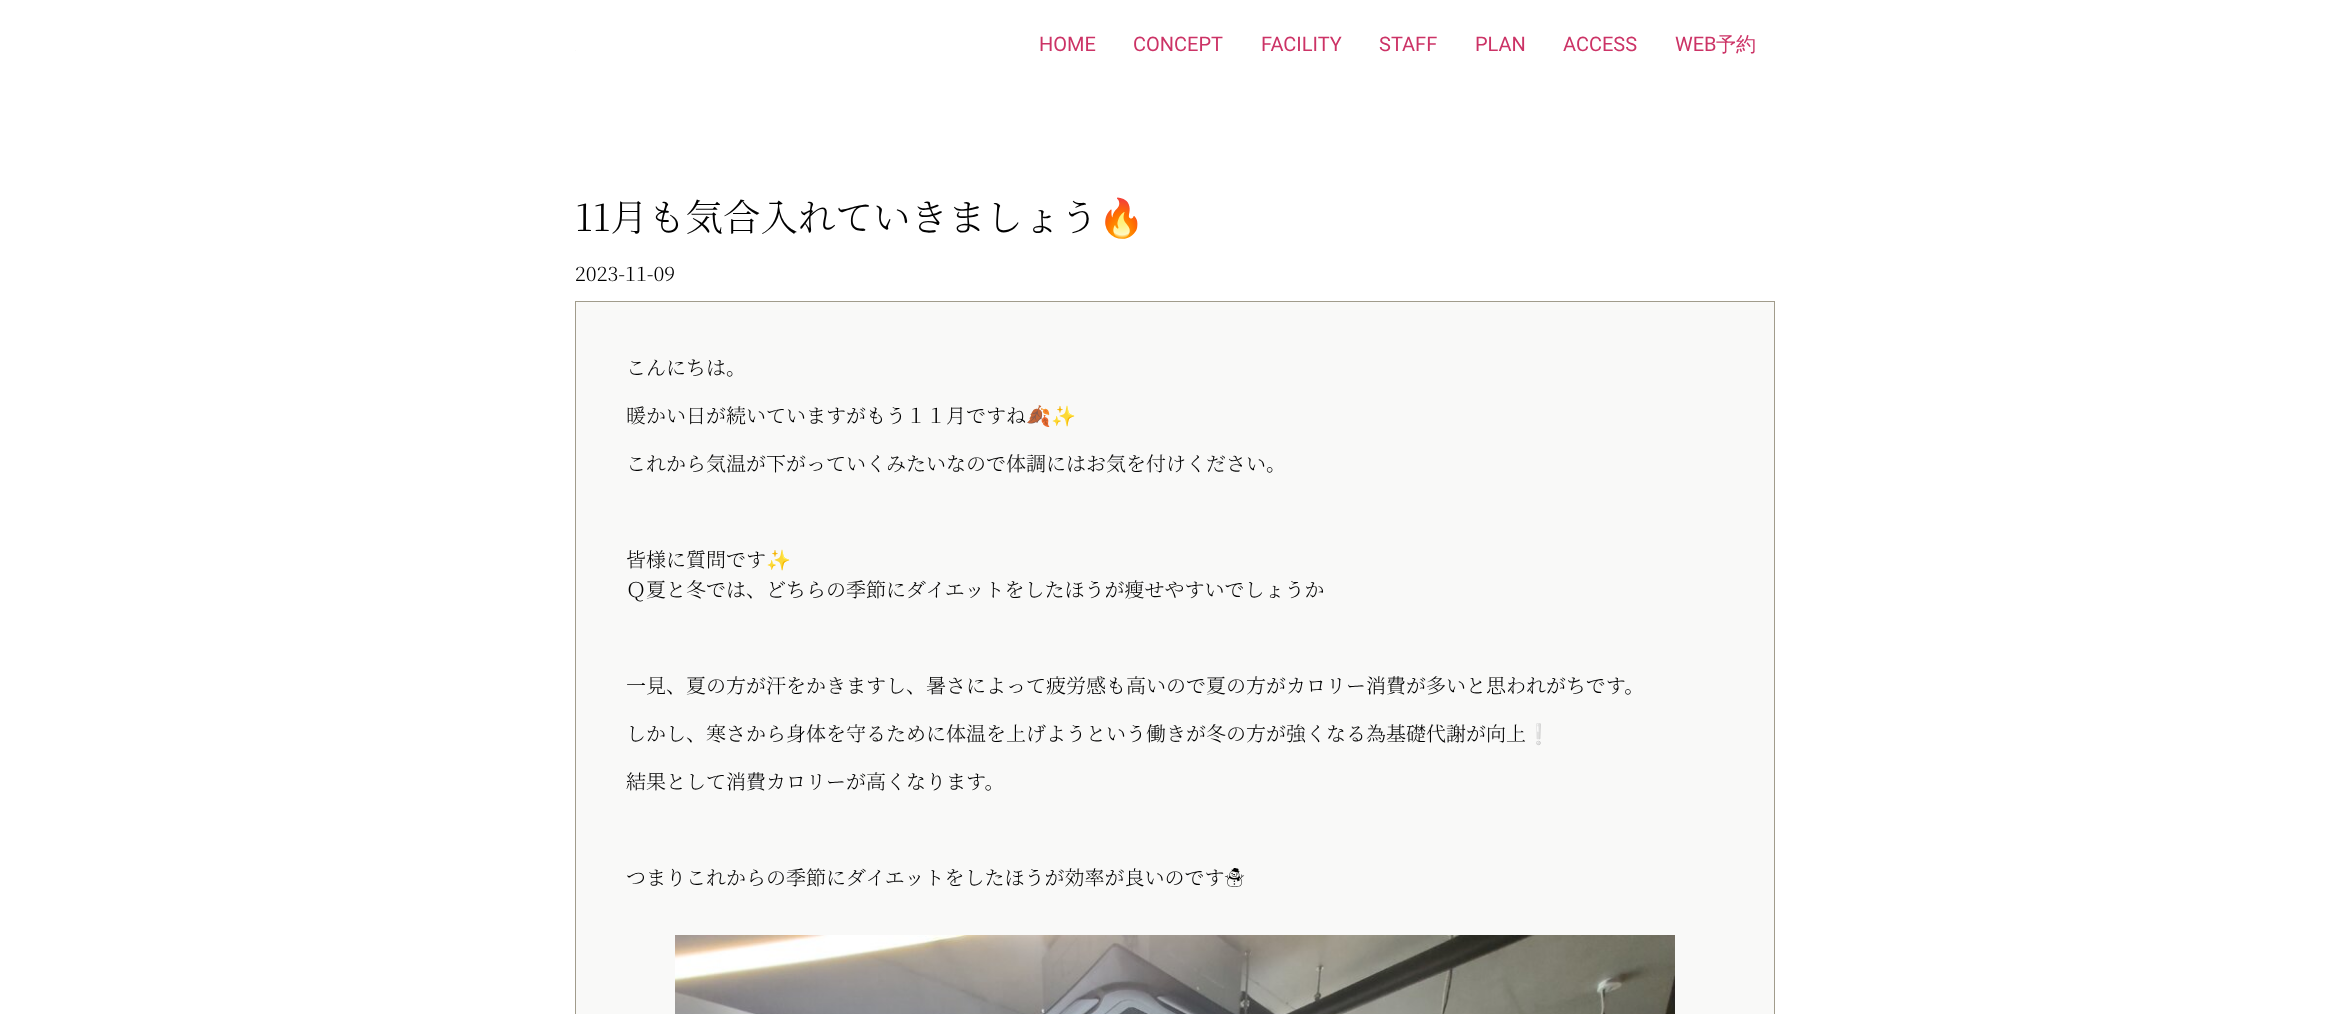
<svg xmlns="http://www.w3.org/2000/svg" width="2349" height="1014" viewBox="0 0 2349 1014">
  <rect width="100%" height="100%" fill="#ffffff"/>
  <rect x="575" y="50" width="1" height="1" fill="#fafaf9"/>
  <text x="1039" y="51" font-family="Roboto" font-size="20" fill="#cc3366">HOME</text>
  <text x="1133" y="51" font-family="Roboto" font-size="20" fill="#cc3366">CONCEPT</text>
  <text x="1261" y="51" font-family="Roboto" font-size="20" fill="#cc3366">FACILITY</text>
  <text x="1379" y="51" font-family="Roboto" font-size="20" fill="#cc3366">STAFF</text>
  <text x="1475" y="51" font-family="Roboto" font-size="20" fill="#cc3366">PLAN</text>
  <text x="1563" y="51" font-family="Roboto" font-size="20" fill="#cc3366">ACCESS</text>
  <text x="1675" y="51" font-family="Roboto" font-size="20" fill="#cc3366">WEB</text>
  <text x="1716" y="51" font-family="WenQuanYi Zen Hei" font-size="20" font-weight="500" fill="#cc3366">予約</text>
  <text x="575" y="231" font-family="Noto Serif JP" font-size="37.5" font-weight="300" fill="#000000">11月も気合入れていきましょう</text>
  <text x="1098" y="231" font-family="Noto Color Emoji" font-size="37.5" fill="#000000">🔥</text>
  <text x="575" y="281" font-family="Noto Serif JP" font-size="20" font-weight="300" fill="#000000">2023-11-09</text>
  <rect x="575.5" y="301.5" width="1199" height="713" fill="#f9f9f8" stroke="#a19c8c"/>
  <text x="626" y="375" font-family="Noto Serif JP" font-size="20" font-weight="300" fill="#000000">こんにちは。</text>
  <text x="626" y="423" font-family="Noto Serif JP" font-size="20" font-weight="300" fill="#000000">暖かい日が続いていますがもう１１月ですね</text>
  <text x="1026" y="423" font-family="Noto Color Emoji" font-size="20" fill="#000000">🍂✨</text>
  <text x="626" y="471" font-family="Noto Serif JP" font-size="20" font-weight="300" fill="#000000">これから気温が下がっていくみたいなので体調にはお気を付けください。</text>
  <text x="626" y="567" font-family="Noto Serif JP" font-size="20" font-weight="300" fill="#000000">皆様に質問です</text>
  <text x="766" y="567" font-family="Noto Color Emoji" font-size="20" fill="#000000">✨</text>
  <text x="626" y="597" font-family="Noto Serif JP" font-size="20" font-weight="300" fill="#000000">Ｑ夏と冬では、どちらの季節にダイエットをしたほうが瘦せやすいでしょうか</text>
  <text x="626" y="693" font-family="Noto Serif JP" font-size="20" font-weight="300" fill="#000000">一見、夏の方が汗をかきますし、暑さによって疲労感も高いので夏の方がカロリー消費が多いと思われがちです。</text>
  <text x="626" y="741" font-family="Noto Serif JP" font-size="20" font-weight="300" fill="#000000">しかし、寒さから身体を守るために体温を上げようという働きが冬の方が強くなる為基礎代謝が向上</text>
  <text x="1526" y="741" font-family="Noto Color Emoji" font-size="20" fill="#000000">❕</text>
  <text x="626" y="789" font-family="Noto Serif JP" font-size="20" font-weight="300" fill="#000000">結果として消費カロリーが高くなります。</text>
  <text x="626" y="885" font-family="Noto Serif JP" font-size="20" font-weight="300" fill="#000000">つまりこれからの季節にダイエットをしたほうが効率が良いのです☃</text>
  <image x="675" y="935" width="1000" height="79" href="img1.png"/>
</svg>
